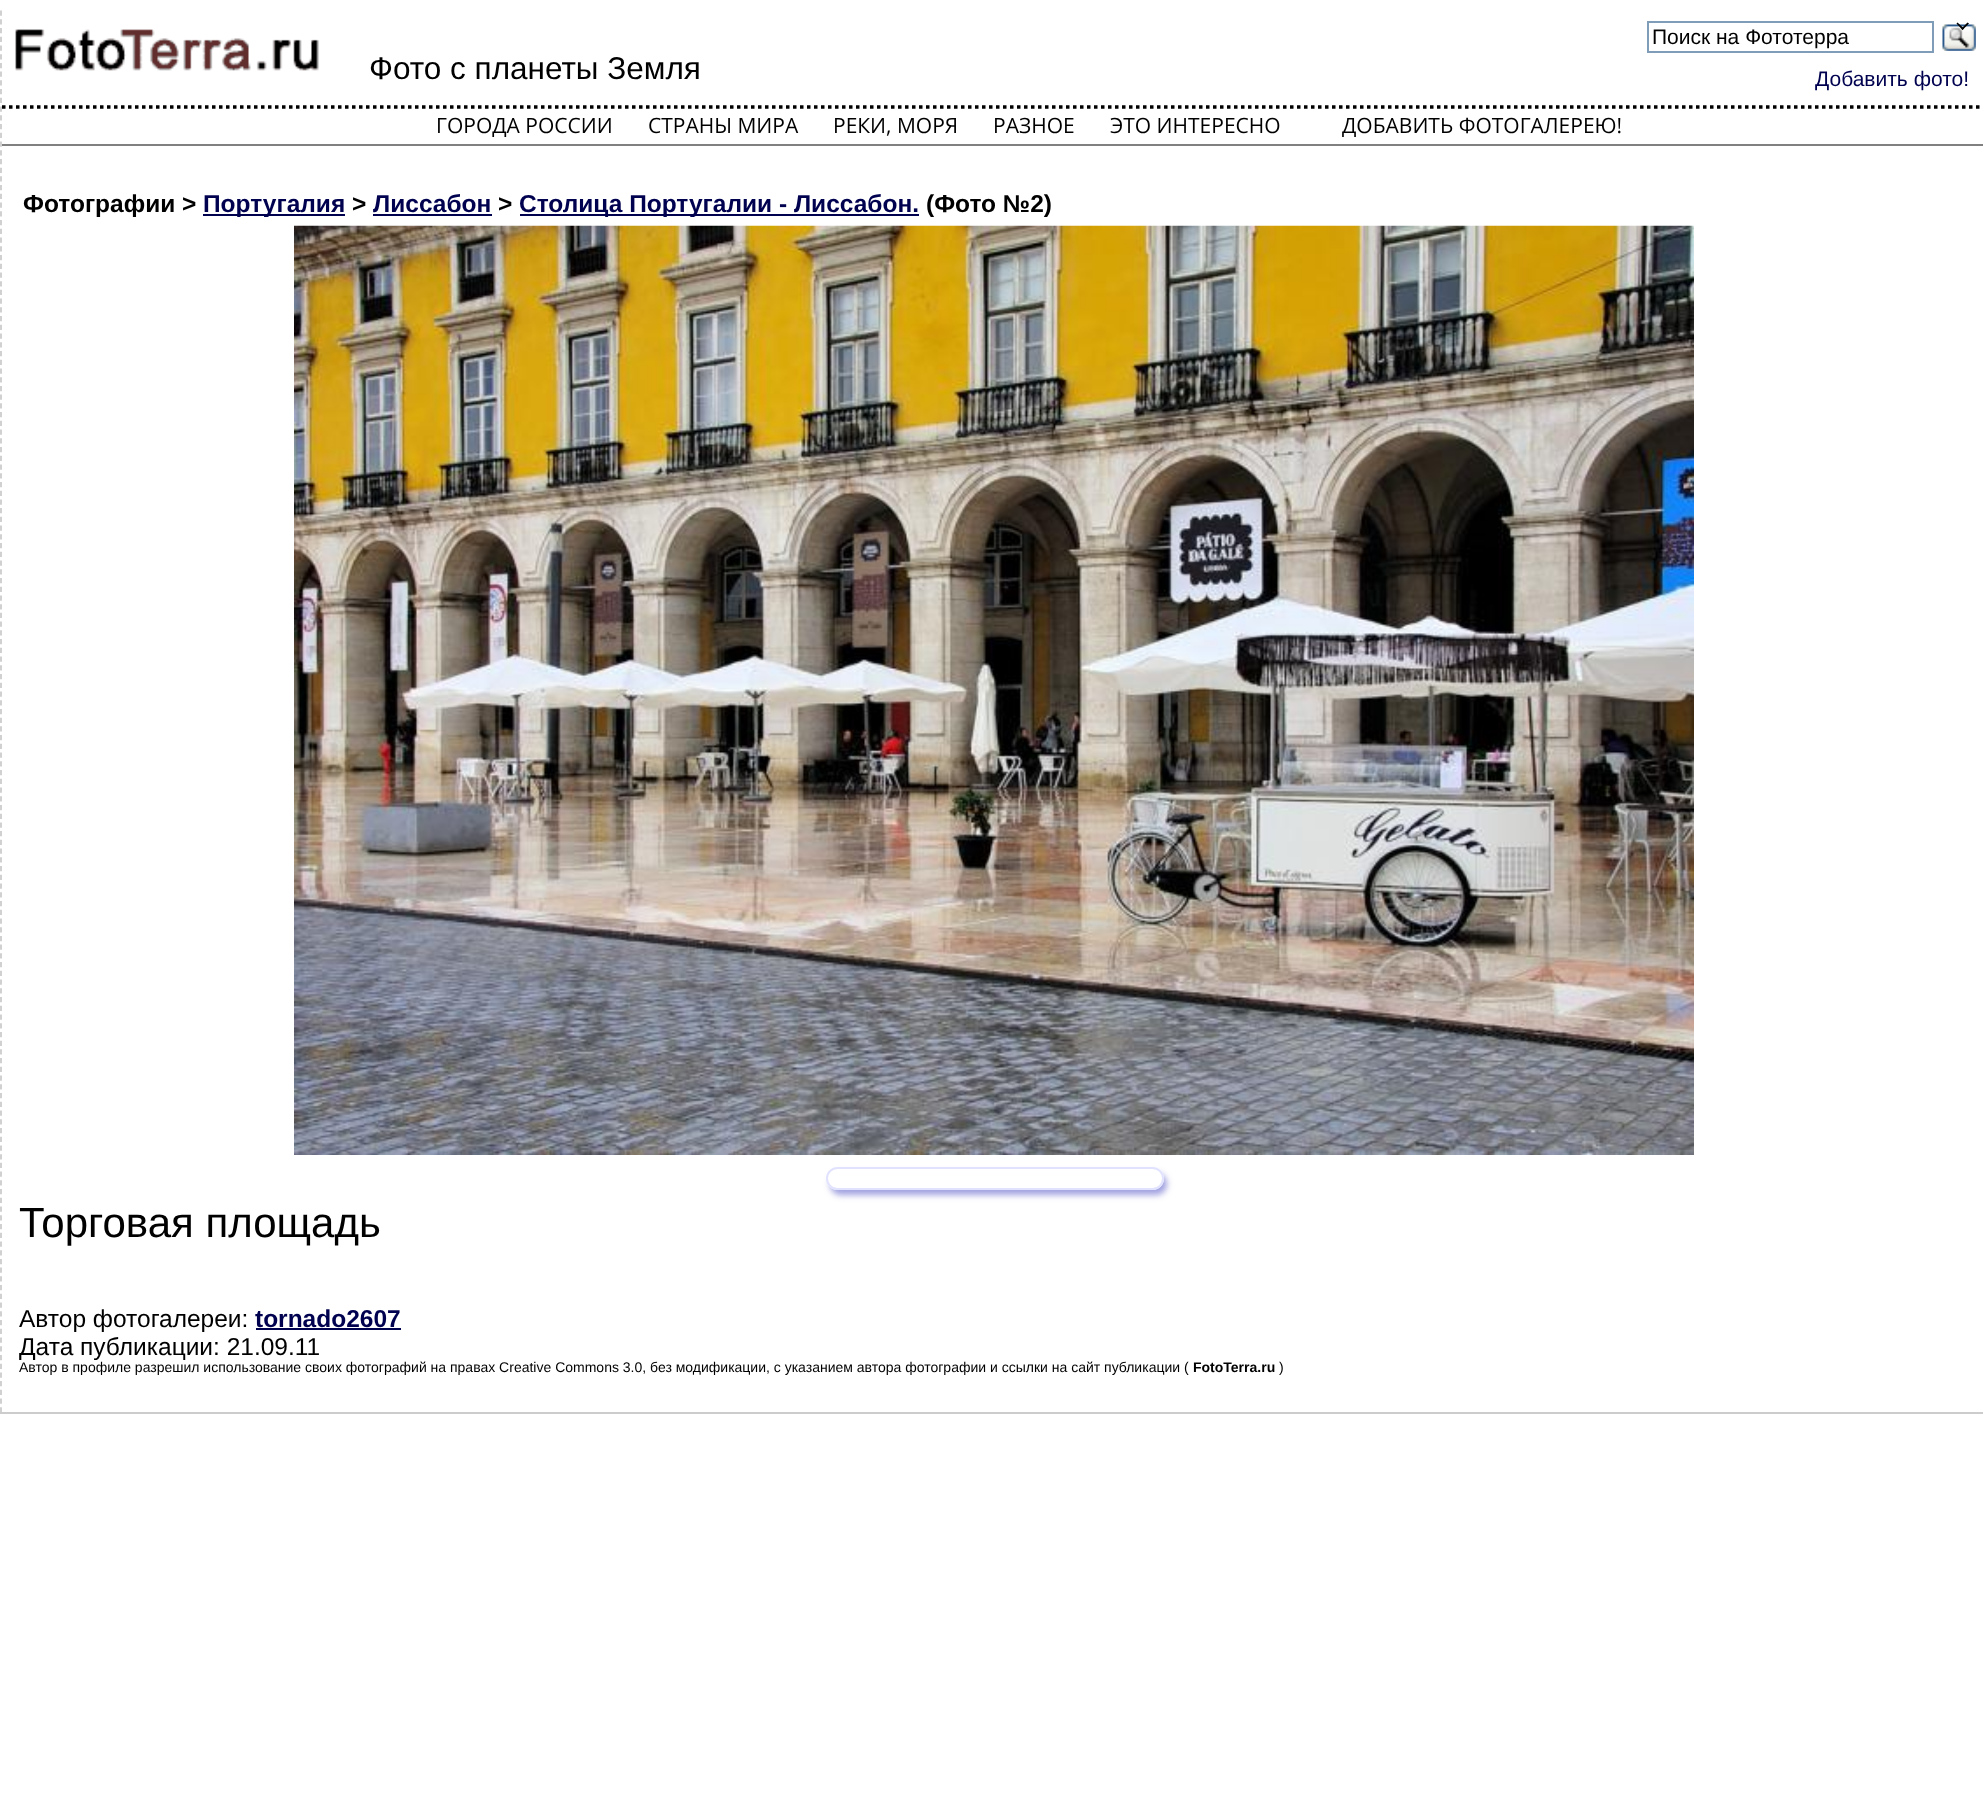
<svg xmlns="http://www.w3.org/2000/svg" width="1983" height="1794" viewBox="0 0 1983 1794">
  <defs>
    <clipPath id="clip1"><path d="M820 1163H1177V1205H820ZM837.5 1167H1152.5C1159 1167 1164 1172 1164 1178.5C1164 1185 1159 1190 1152.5 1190H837.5C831 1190 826 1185 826 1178.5C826 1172 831 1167 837.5 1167Z" clip-rule="evenodd"/></clipPath>
    <filter id="blur1" x="-50%" y="-200%" width="200%" height="500%"><feGaussianBlur stdDeviation="3"/></filter>
  </defs>
  <rect width="100%" height="100%" fill="#ffffff"/>
  <rect x="0" y="1412" width="1983" height="2" fill="#cccccc"/>
  <path d="M1 10.5V1414" fill="none" stroke="#cccccc" stroke-width="1.8" stroke-dasharray="5.25 3.48"/>
  <image x="15" y="29" width="304" height="42" href="img1.png"/>
  <text x="369" y="79" font-family="Liberation Sans" font-size="31.5" fill="#000000">Фото с планеты Земля</text>
  <rect x="1648" y="22" width="285" height="30" fill="none" stroke="#7f9db9" stroke-width="2"/>
  <text x="1652" y="44" font-family="Liberation Sans" font-size="21" fill="#000000">Поиск на Фототерра</text>
  <image x="1942" y="24" width="34" height="27" href="img2.png"/>
  <text x="1815" y="86" font-family="Liberation Sans" font-size="21" fill="#000250">Добавить фото!</text>
  <path d="M2 107H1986" fill="none" stroke="#000000" stroke-width="3.5" stroke-dasharray="3.5 3.5"/>
  <rect x="2" y="144" width="1981" height="2" fill="#808080"/>
  <text x="436" y="133" font-family="Open Sans" font-size="21" fill="#000000">ГОРОДА РОССИИ</text>
  <text x="648" y="133" font-family="Open Sans" font-size="21" fill="#000000">СТРАНЫ МИРА</text>
  <text x="833" y="133" font-family="Open Sans" font-size="21" fill="#000000">РЕКИ, МОРЯ</text>
  <text x="993" y="133" font-family="Open Sans" font-size="21" fill="#000000">РАЗНОЕ</text>
  <path d="M1967.5 22.5L1969 23.5L1962.5 30L1961.5 28.5Z" fill="#000000"/>
  <path d="M1957.5 22.5L1964 28.5L1962.5 30L1956.5 23.5Z" fill="#000000"/>
  <text x="1110" y="133" font-family="Open Sans" font-size="21" fill="#000000">ЭТО ИНТЕРЕСНО</text>
  <text x="1342" y="133" font-family="Open Sans" font-size="21" fill="#000000">ДОБАВИТЬ ФОТОГАЛЕРЕЮ!</text>
  <text x="23" y="212" font-family="Liberation Sans" font-size="24.5" font-weight="bold" fill="#000000">Фотографии &gt;</text>
  <rect x="203" y="214" width="142" height="2" fill="#000250"/>
  <text x="203" y="212" font-family="Liberation Sans" font-size="24.5" font-weight="bold" fill="#000250">Португалия</text>
  <text x="352" y="212" font-family="Liberation Sans" font-size="24.5" font-weight="bold" fill="#000000">&gt;</text>
  <text x="373" y="212" font-family="Liberation Sans" font-size="24.5" font-weight="bold" fill="#000250">Лиссабон</text>
  <rect x="373" y="214" width="119" height="2" fill="#000250"/>
  <text x="498" y="212" font-family="Liberation Sans" font-size="24.5" font-weight="bold" fill="#000000">&gt;</text>
  <rect x="520" y="214" width="399" height="2" fill="#000250"/>
  <text x="519" y="212" font-family="Liberation Sans" font-size="24.5" font-weight="bold" fill="#000250">Столица Португалии - Лиссабон.</text>
  <text x="926" y="212" font-family="Liberation Sans" font-size="24.5" font-weight="bold" fill="#000000">(Фото №2)</text>
  <image x="294" y="225" width="1400" height="930" href="img3.png"/>
  <g clip-path="url(#clip1)">
    <rect x="830" y="1173" width="337" height="22" rx="11" fill="#a0a0e0" filter="url(#blur1)"/>
  </g>
  <rect x="827" y="1168" width="336" height="21" rx="10.5" fill="none" stroke="#e1e2fe" stroke-width="2"/>
  <text x="19" y="1237" font-family="Liberation Sans" font-size="42" fill="#000000">Торговая площадь</text>
  <text x="19" y="1327" font-family="Liberation Sans" font-size="24.5" fill="#000000">Автор фотогалереи:</text>
  <text x="255" y="1327" font-family="Liberation Sans" font-size="24.5" font-weight="bold" fill="#000250">tornado2607</text>
  <rect x="256" y="1328" width="145" height="2" fill="#000250"/>
  <text x="19" y="1355" font-family="Liberation Sans" font-size="24.5" fill="#000000">Дата публикации: 21.09.11</text>
  <text x="19" y="1372" font-family="Liberation Sans" font-size="14" fill="#000000">Автор в профиле разрешил использование своих фотографий на правах Creative Commons 3.0, без модификации, с указанием автора фотографии и ссылки на сайт публикации (</text>
  <text x="1193" y="1372" font-family="Liberation Sans" font-size="14" font-weight="bold" fill="#000000">FotoTerra.ru</text>
  <text x="1279" y="1372" font-family="Liberation Sans" font-size="14" fill="#000000">)</text>
</svg>
